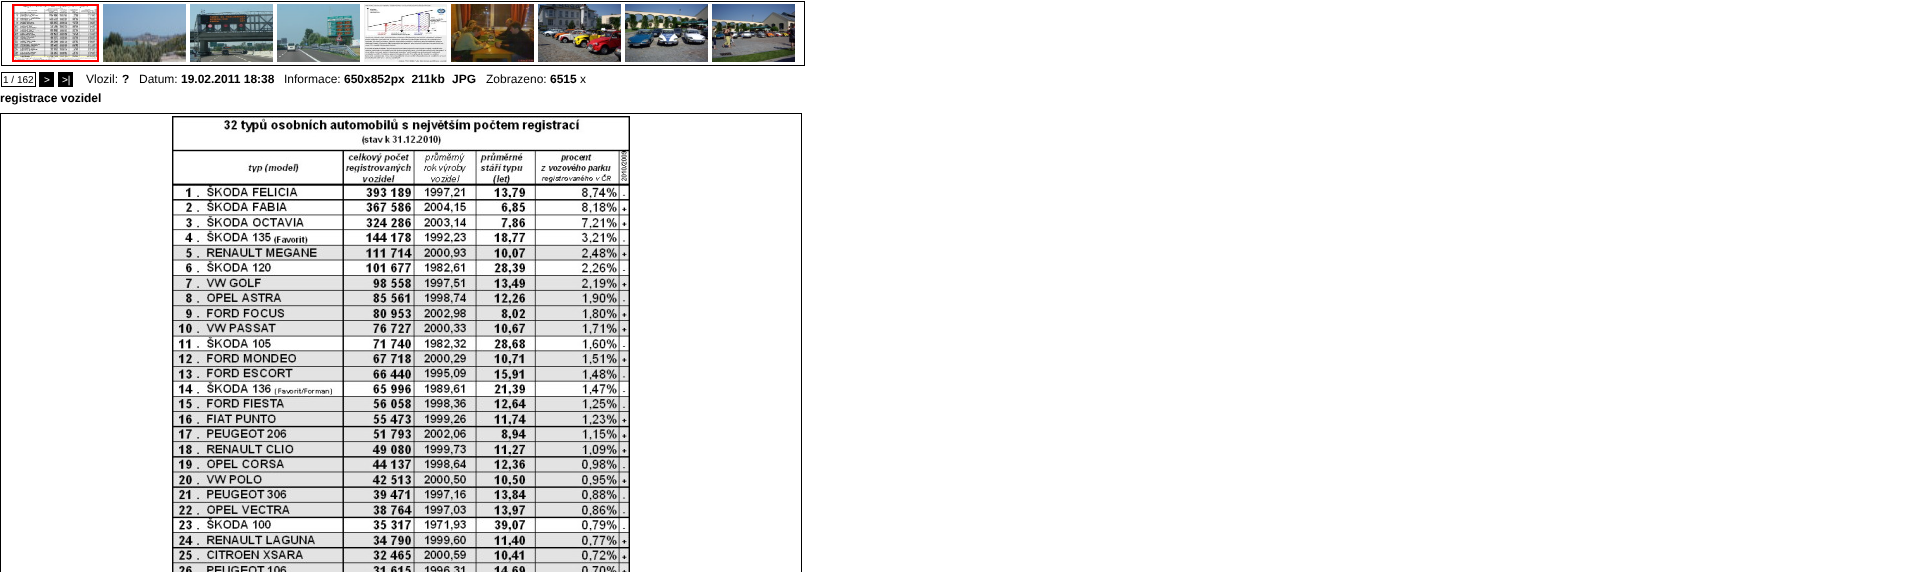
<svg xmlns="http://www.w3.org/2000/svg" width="1914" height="572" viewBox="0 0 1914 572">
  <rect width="100%" height="100%" fill="#ffffff"/>
  <rect x="1.5" y="1.5" width="803" height="64" fill="none" stroke="#000000"/>
  <rect x="13" y="5" width="85" height="56" fill="none" stroke="#ff0000" stroke-width="2"/>
  <image x="103" y="4" width="83" height="58" href="img1.png"/>
  <image x="190" y="4" width="83" height="58" href="img2.png"/>
  <image x="277" y="4" width="83" height="58" href="img3.png"/>
  <image x="364" y="4" width="83" height="58" href="img4.png"/>
  <image x="451" y="4" width="83" height="58" href="img5.png"/>
  <image x="538" y="4" width="83" height="58" href="img6.png"/>
  <image x="625" y="4" width="83" height="58" href="img7.png"/>
  <image x="712" y="4" width="83" height="58" href="img8.png"/>
  <image x="14" y="6" width="83" height="54" href="img9.png"/>
  <rect x="1.5" y="72.5" width="34" height="14" fill="none" stroke="#000000"/>
  <text x="3" y="83" font-family="Liberation Sans" font-size="10" fill="#000000">1 / 162</text>
  <rect x="39" y="72" width="15" height="15" fill="#000000"/>
  <text x="44" y="83" font-family="Liberation Sans" font-size="10" fill="#ffffff">&gt;</text>
  <rect x="58" y="72" width="15" height="15" fill="#000000"/>
  <text x="62" y="83" font-family="Liberation Sans" font-size="10" fill="#ffffff">&gt;|</text>
  <text x="86" y="83" font-family="Liberation Sans" font-size="12" fill="#000000">Vlozil:</text>
  <text x="122" y="83" font-family="Liberation Sans" font-size="12" font-weight="bold" fill="#000000">?</text>
  <text x="139" y="83" font-family="Liberation Sans" font-size="12" fill="#000000">Datum:</text>
  <text x="181" y="83" font-family="Liberation Sans" font-size="12" font-weight="bold" fill="#000000">19.02.2011 18:38</text>
  <text x="284" y="83" font-family="Liberation Sans" font-size="12" fill="#000000">Informace:</text>
  <text x="344" y="83" font-family="Liberation Sans" font-size="12" font-weight="bold" fill="#000000" xml:space="preserve">650x852px  211kb</text>
  <text x="452" y="83" font-family="Liberation Sans" font-size="12" font-weight="bold" fill="#000000">JPG</text>
  <text x="486" y="83" font-family="Liberation Sans" font-size="12" fill="#000000">Zobrazeno:</text>
  <text x="550" y="83" font-family="Liberation Sans" font-size="12" font-weight="bold" fill="#000000">6515</text>
  <text x="580" y="83" font-family="Liberation Sans" font-size="12" fill="#000000">x</text>
  <text x="0" y="102" font-family="Liberation Sans" font-size="12" font-weight="bold" fill="#000000">registrace vozidel</text>
  <rect x="0.5" y="113.5" width="801" height="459" fill="none" stroke="#000000"/>
  <image x="172" y="116" width="458" height="456" href="img10.png"/>
</svg>
